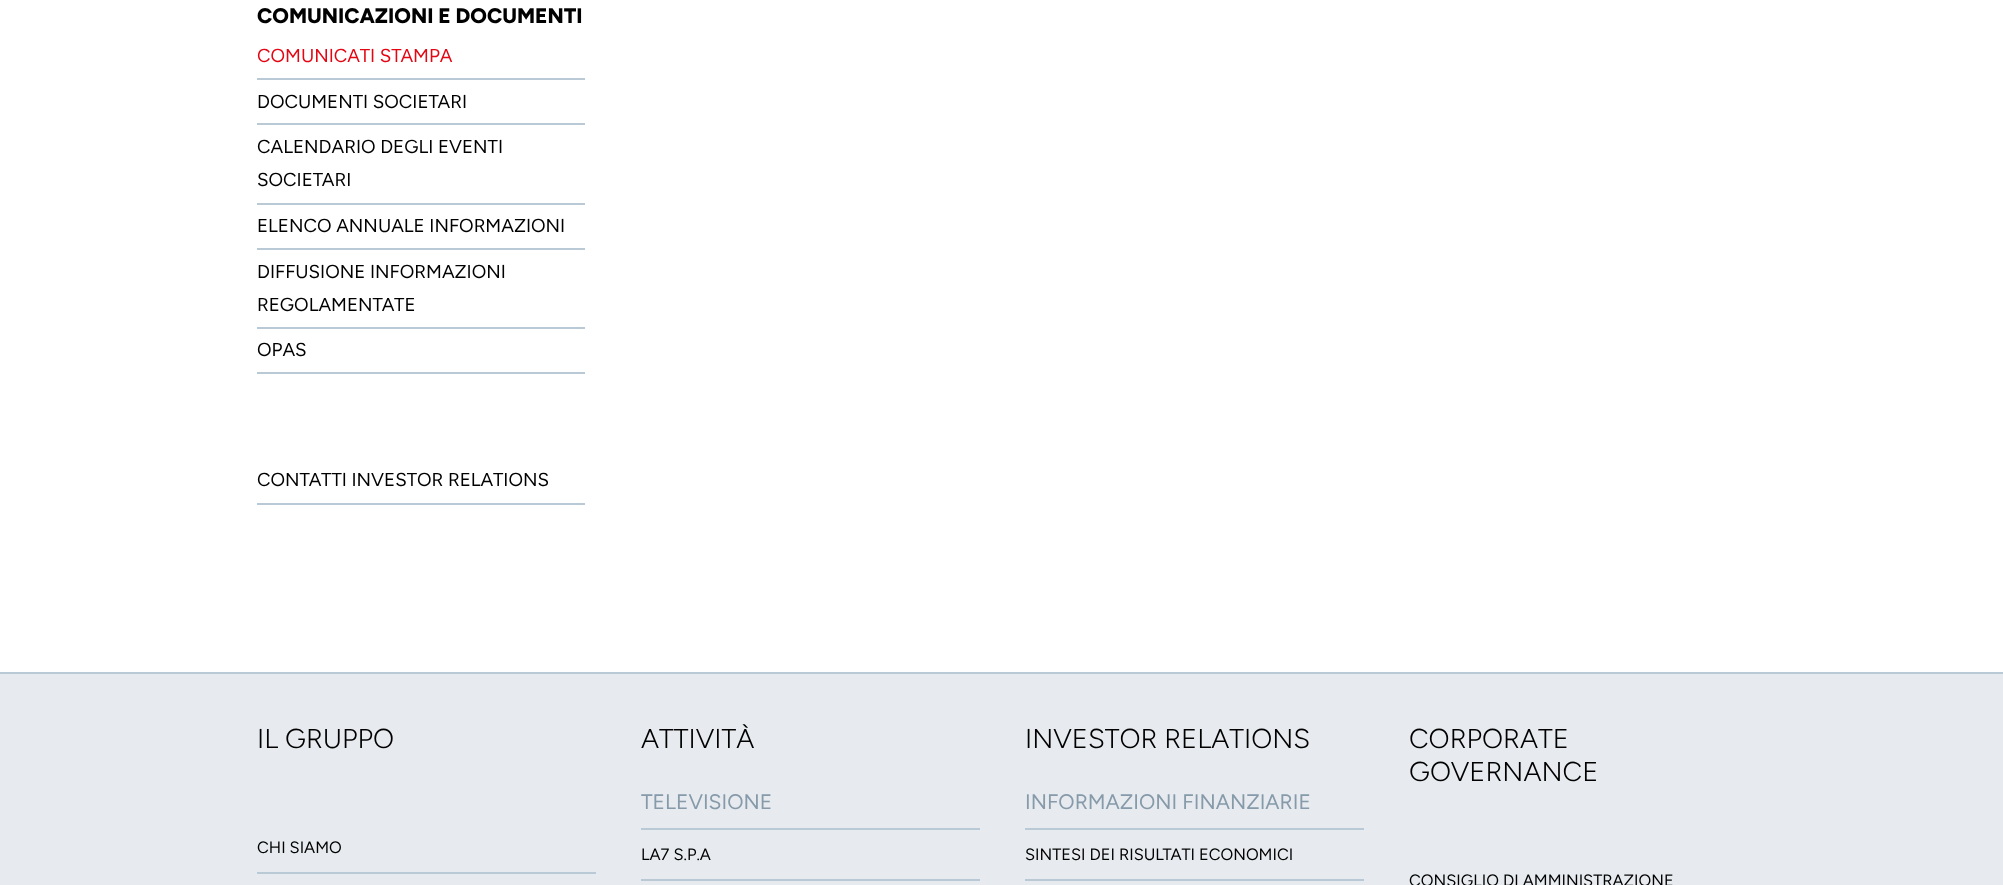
<svg xmlns="http://www.w3.org/2000/svg" width="2003" height="885" viewBox="0 0 2003 885">
  <rect width="100%" height="100%" fill="#ffffff"/>
  <text x="257" y="23" font-family="Figtree" font-size="21" font-weight="800" fill="#000000">COMUNICAZIONI E DOCUMENTI</text>
  <rect x="257" y="78" width="328" height="2" fill="#b9cad6"/>
  <text x="257" y="62" font-family="Figtree" font-size="18.75" fill="#e30613">COMUNICATI STAMPA</text>
  <rect x="257" y="123" width="328" height="2" fill="#b9cad6"/>
  <text x="257" y="108" font-family="Figtree" font-size="18.75" fill="#000000">DOCUMENTI SOCIETARI</text>
  <rect x="257" y="203" width="328" height="2" fill="#b9cad6"/>
  <text x="257" y="153" font-family="Figtree" font-size="18.75" fill="#000000">CALENDARIO DEGLI EVENTI</text>
  <text x="257" y="186" font-family="Figtree" font-size="18.75" fill="#000000">SOCIETARI</text>
  <rect x="257" y="248" width="328" height="2" fill="#b9cad6"/>
  <text x="257" y="232" font-family="Figtree" font-size="18.75" fill="#000000">ELENCO ANNUALE INFORMAZIONI</text>
  <rect x="257" y="327" width="328" height="2" fill="#b9cad6"/>
  <text x="257" y="278" font-family="Figtree" font-size="18.75" fill="#000000">DIFFUSIONE INFORMAZIONI</text>
  <text x="257" y="311" font-family="Figtree" font-size="18.75" fill="#000000">REGOLAMENTATE</text>
  <rect x="257" y="372" width="328" height="2" fill="#b9cad6"/>
  <text x="257" y="356" font-family="Figtree" font-size="18.75" fill="#000000">OPAS</text>
  <rect x="257" y="503" width="328" height="2" fill="#b9cad6"/>
  <text x="257" y="486" font-family="Figtree" font-size="18.75" fill="#000000">CONTATTI INVESTOR RELATIONS</text>
  <rect x="0" y="674" width="2003" height="211" fill="#e7ebef"/>
  <rect x="0" y="672" width="2003" height="2" fill="#b9cad6"/>
  <text x="257" y="748" font-family="Figtree" font-size="27.25" font-weight="300" fill="#000000">IL GRUPPO</text>
  <rect x="257" y="872" width="339" height="2" fill="#b9cad6"/>
  <text x="257" y="853" font-family="Figtree" font-size="16.4" fill="#000000">CHI SIAMO</text>
  <text x="641" y="748" font-family="Figtree" font-size="27.25" font-weight="300" fill="#000000">ATTIVITÀ</text>
  <rect x="641" y="828" width="339" height="2" fill="#b9cad6"/>
  <text x="641" y="809" font-family="Figtree" font-size="21" fill="#869aaa">TELEVISIONE</text>
  <rect x="641" y="879" width="339" height="2" fill="#b9cad6"/>
  <text x="641" y="860" font-family="Figtree" font-size="16.4" fill="#000000">LA7 S.P.A</text>
  <text x="1025" y="748" font-family="Figtree" font-size="27.25" font-weight="300" fill="#000000">INVESTOR RELATIONS</text>
  <rect x="1025" y="828" width="339" height="2" fill="#b9cad6"/>
  <text x="1025" y="809" font-family="Figtree" font-size="21" fill="#869aaa">INFORMAZIONI FINANZIARIE</text>
  <rect x="1025" y="879" width="339" height="2" fill="#b9cad6"/>
  <text x="1025" y="860" font-family="Figtree" font-size="16.4" fill="#000000">SINTESI DEI RISULTATI ECONOMICI</text>
  <text x="1409" y="748" font-family="Figtree" font-size="27.25" font-weight="300" fill="#000000">CORPORATE</text>
  <text x="1409" y="781" font-family="Figtree" font-size="27.25" font-weight="300" fill="#000000">GOVERNANCE</text>
  <text x="1409" y="886" font-family="Figtree" font-size="16.4" fill="#000000">CONSIGLIO DI AMMINISTRAZIONE</text>
</svg>
